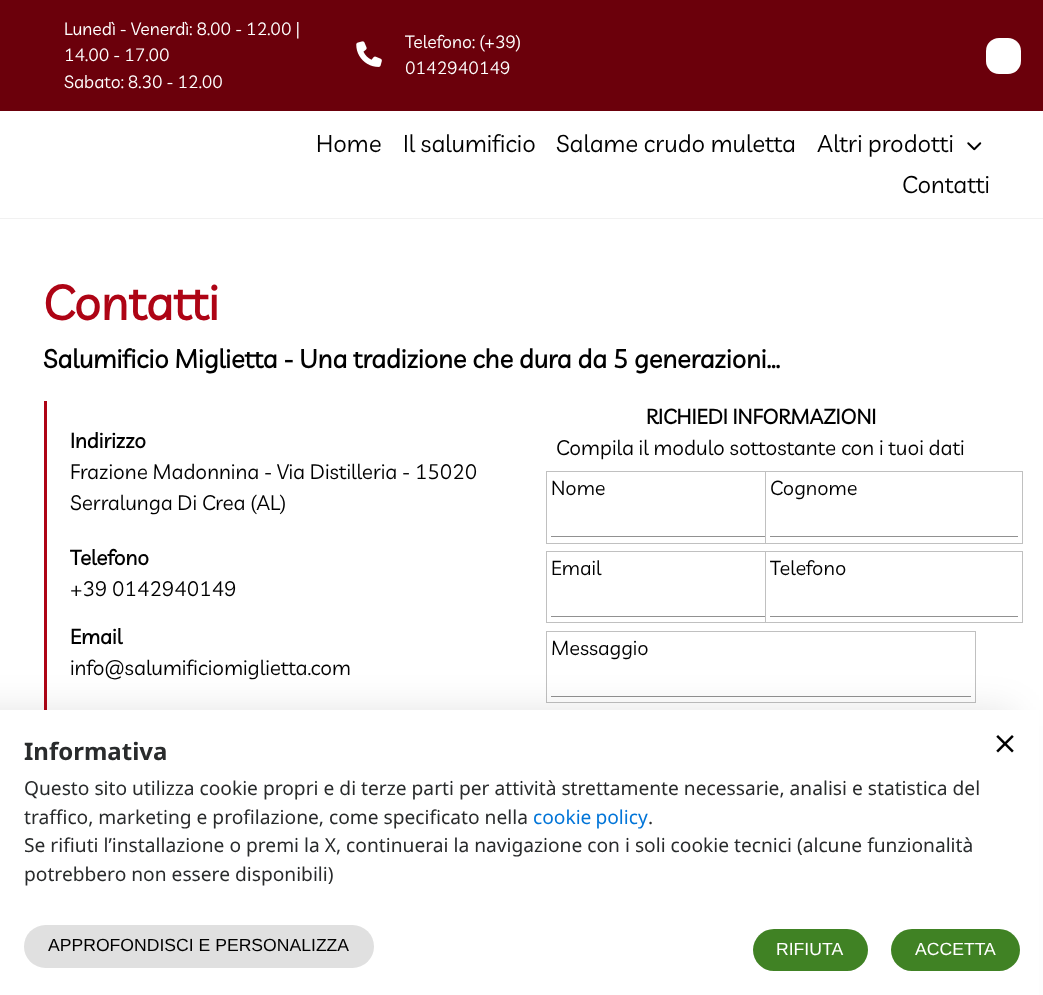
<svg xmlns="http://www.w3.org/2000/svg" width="1043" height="995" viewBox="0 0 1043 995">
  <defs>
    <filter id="blur1" x="-50%" y="-200%" width="200%" height="500%"><feGaussianBlur stdDeviation="19"/></filter>
  </defs>
  <rect width="100%" height="100%" fill="#ffffff"/>
  <rect x="0" y="0" width="1043" height="111" fill="#6b000b"/>
  <text x="64" y="35" font-family="Livvic" font-size="17.6" fill="#ffffff">Lunedì - Venerdì: 8.00 - 12.00 |</text>
  <text x="64" y="61" font-family="Livvic" font-size="17.6" fill="#ffffff">14.00 - 17.00</text>
  <text x="64" y="88" font-family="Livvic" font-size="17.6" fill="#ffffff">Sabato: 8.30 - 12.00</text>
  <image x="356" y="41" width="26" height="26" href="img1.png"/>
  <text x="405" y="48" font-family="Livvic" font-size="17.6" fill="#ffffff">Telefono: (+39)</text>
  <text x="405" y="74" font-family="Livvic" font-size="17.6" fill="#ffffff">0142940149</text>
  <rect x="986" y="38" width="35" height="36" rx="13" fill="#ffffff"/>
  <rect x="0" y="218" width="1043" height="1" fill="#f1f1f1"/>
  <text x="316" y="152" font-family="Livvic" font-size="24" fill="#000000">Home</text>
  <text x="403" y="152" font-family="Livvic" font-size="24" fill="#000000">Il salumificio</text>
  <text x="556" y="152" font-family="Livvic" font-size="24" fill="#000000">Salame crudo muletta</text>
  <text x="817" y="152" font-family="Livvic" font-size="24" fill="#000000">Altri prodotti</text>
  <image x="967" y="142" width="15" height="9" href="img2.png"/>
  <text x="902" y="193" font-family="Livvic" font-size="24" fill="#000000">Contatti</text>
  <text x="43" y="320" font-family="Livvic" font-size="48" font-weight="bold" fill="#ae0415">Contatti</text>
  <text x="43" y="368" font-family="Livvic" font-size="25.6" font-weight="bold" fill="#000000">Salumificio Miglietta - Una tradizione che dura da 5 generazioni...</text>
  <rect x="44" y="401" width="3" height="309" fill="#ae0415"/>
  <text x="70" y="448" font-family="Livvic" font-size="20.75" font-weight="bold" fill="#000000">Indirizzo</text>
  <text x="70" y="479" font-family="Livvic" font-size="20.75" fill="#000000">Frazione Madonnina - Via Distilleria - 15020</text>
  <text x="70" y="510" font-family="Livvic" font-size="20.75" fill="#000000">Serralunga Di Crea (AL)</text>
  <text x="70" y="565" font-family="Livvic" font-size="20.75" font-weight="bold" fill="#000000">Telefono</text>
  <text x="70" y="596" font-family="Livvic" font-size="20.75" fill="#000000">+39 0142940149</text>
  <text x="70" y="644" font-family="Livvic" font-size="20.75" font-weight="bold" fill="#000000">Email</text>
  <text x="70" y="675" font-family="Livvic" font-size="20.75" fill="#000000">info@salumificiomiglietta.com</text>
  <text x="646" y="424" font-family="Livvic" font-size="20.75" font-weight="bold" fill="#000000">RICHIEDI INFORMAZIONI</text>
  <text x="556" y="455" font-family="Livvic" font-size="20.75" fill="#000000">Compila il modulo sottostante con i tuoi dati</text>
  <rect x="546.5" y="471.5" width="257" height="72" fill="none" stroke="#c0c0c0"/>
  <text x="551" y="495" font-family="Livvic" font-size="20" fill="#000000">Nome</text>
  <rect x="551" y="536" width="214" height="1" fill="#919191"/>
  <rect x="803" y="472" width="1" height="71" fill="#ffffff"/>
  <rect x="765.5" y="471.5" width="257" height="72" fill="none" stroke="#c0c0c0"/>
  <text x="770" y="495" font-family="Livvic" font-size="20" fill="#000000">Cognome</text>
  <rect x="770" y="536" width="248" height="1" fill="#919191"/>
  <rect x="546.5" y="551.5" width="257" height="71" fill="none" stroke="#c0c0c0"/>
  <text x="551" y="575" font-family="Livvic" font-size="20" fill="#000000">Email</text>
  <rect x="551" y="616" width="214" height="1" fill="#919191"/>
  <rect x="803" y="552" width="1" height="70" fill="#ffffff"/>
  <rect x="765.5" y="551.5" width="257" height="71" fill="none" stroke="#c0c0c0"/>
  <text x="770" y="575" font-family="Livvic" font-size="20" fill="#000000">Telefono</text>
  <rect x="770" y="616" width="248" height="1" fill="#919191"/>
  <rect x="546.5" y="631.5" width="429" height="71" fill="none" stroke="#c0c0c0"/>
  <text x="551" y="655" font-family="Livvic" font-size="20" fill="#000000">Messaggio</text>
  <rect x="551" y="696" width="420" height="1" fill="#919191"/>
  <rect x="-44" y="713" width="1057" height="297" fill="#000000" fill-opacity="0.12" filter="url(#blur1)"/>
  <rect x="0" y="710" width="1039" height="285" fill="#ffffff"/>
  <text x="24" y="760" font-family="Noto Sans" font-size="24" font-weight="bold" fill="#292b2c">Informativa</text>
  <image x="996" y="735" width="18" height="18" href="img3.png"/>
  <text x="24" y="795" font-family="Noto Sans" font-size="19.2" fill="#292b2c">Questo sito utilizza cookie propri e di terze parti per attività strettamente necessarie, analisi e statistica del</text>
  <text x="24" y="824" font-family="Noto Sans" font-size="19.2" fill="#292b2c">traffico, marketing e profilazione, come specificato nella</text>
  <text x="533" y="824" word-spacing="-1" font-family="Noto Sans" font-size="19.2" fill="#0275d8">cookie policy</text>
  <text x="648" y="824" font-family="Noto Sans" font-size="19.2" fill="#292b2c">.</text>
  <text x="24" y="852" font-family="Noto Sans" font-size="19.2" fill="#292b2c">Se rifiuti l’installazione o premi la X, continuerai la navigazione con i soli cookie tecnici (alcune funzionalità</text>
  <text x="24" y="881" font-family="Noto Sans" font-size="19.2" fill="#292b2c">potrebbero non essere disponibili)</text>
  <rect x="24" y="925" width="350" height="43" rx="21.5" fill="#e0e0e0"/>
  <text x="48" y="951" font-family="Liberation Sans" font-size="17.6" fill="#000000">APPROFONDISCI E PERSONALIZZA</text>
  <rect x="753" y="929" width="115" height="42" rx="21" fill="#408224"/>
  <text x="776" y="955" font-family="Liberation Sans" font-size="17.6" fill="#ffffff">RIFIUTA</text>
  <rect x="891" y="929" width="129" height="42" rx="21" fill="#408224"/>
  <text x="915" y="955" font-family="Liberation Sans" font-size="17.6" fill="#ffffff">ACCETTA</text>
</svg>
